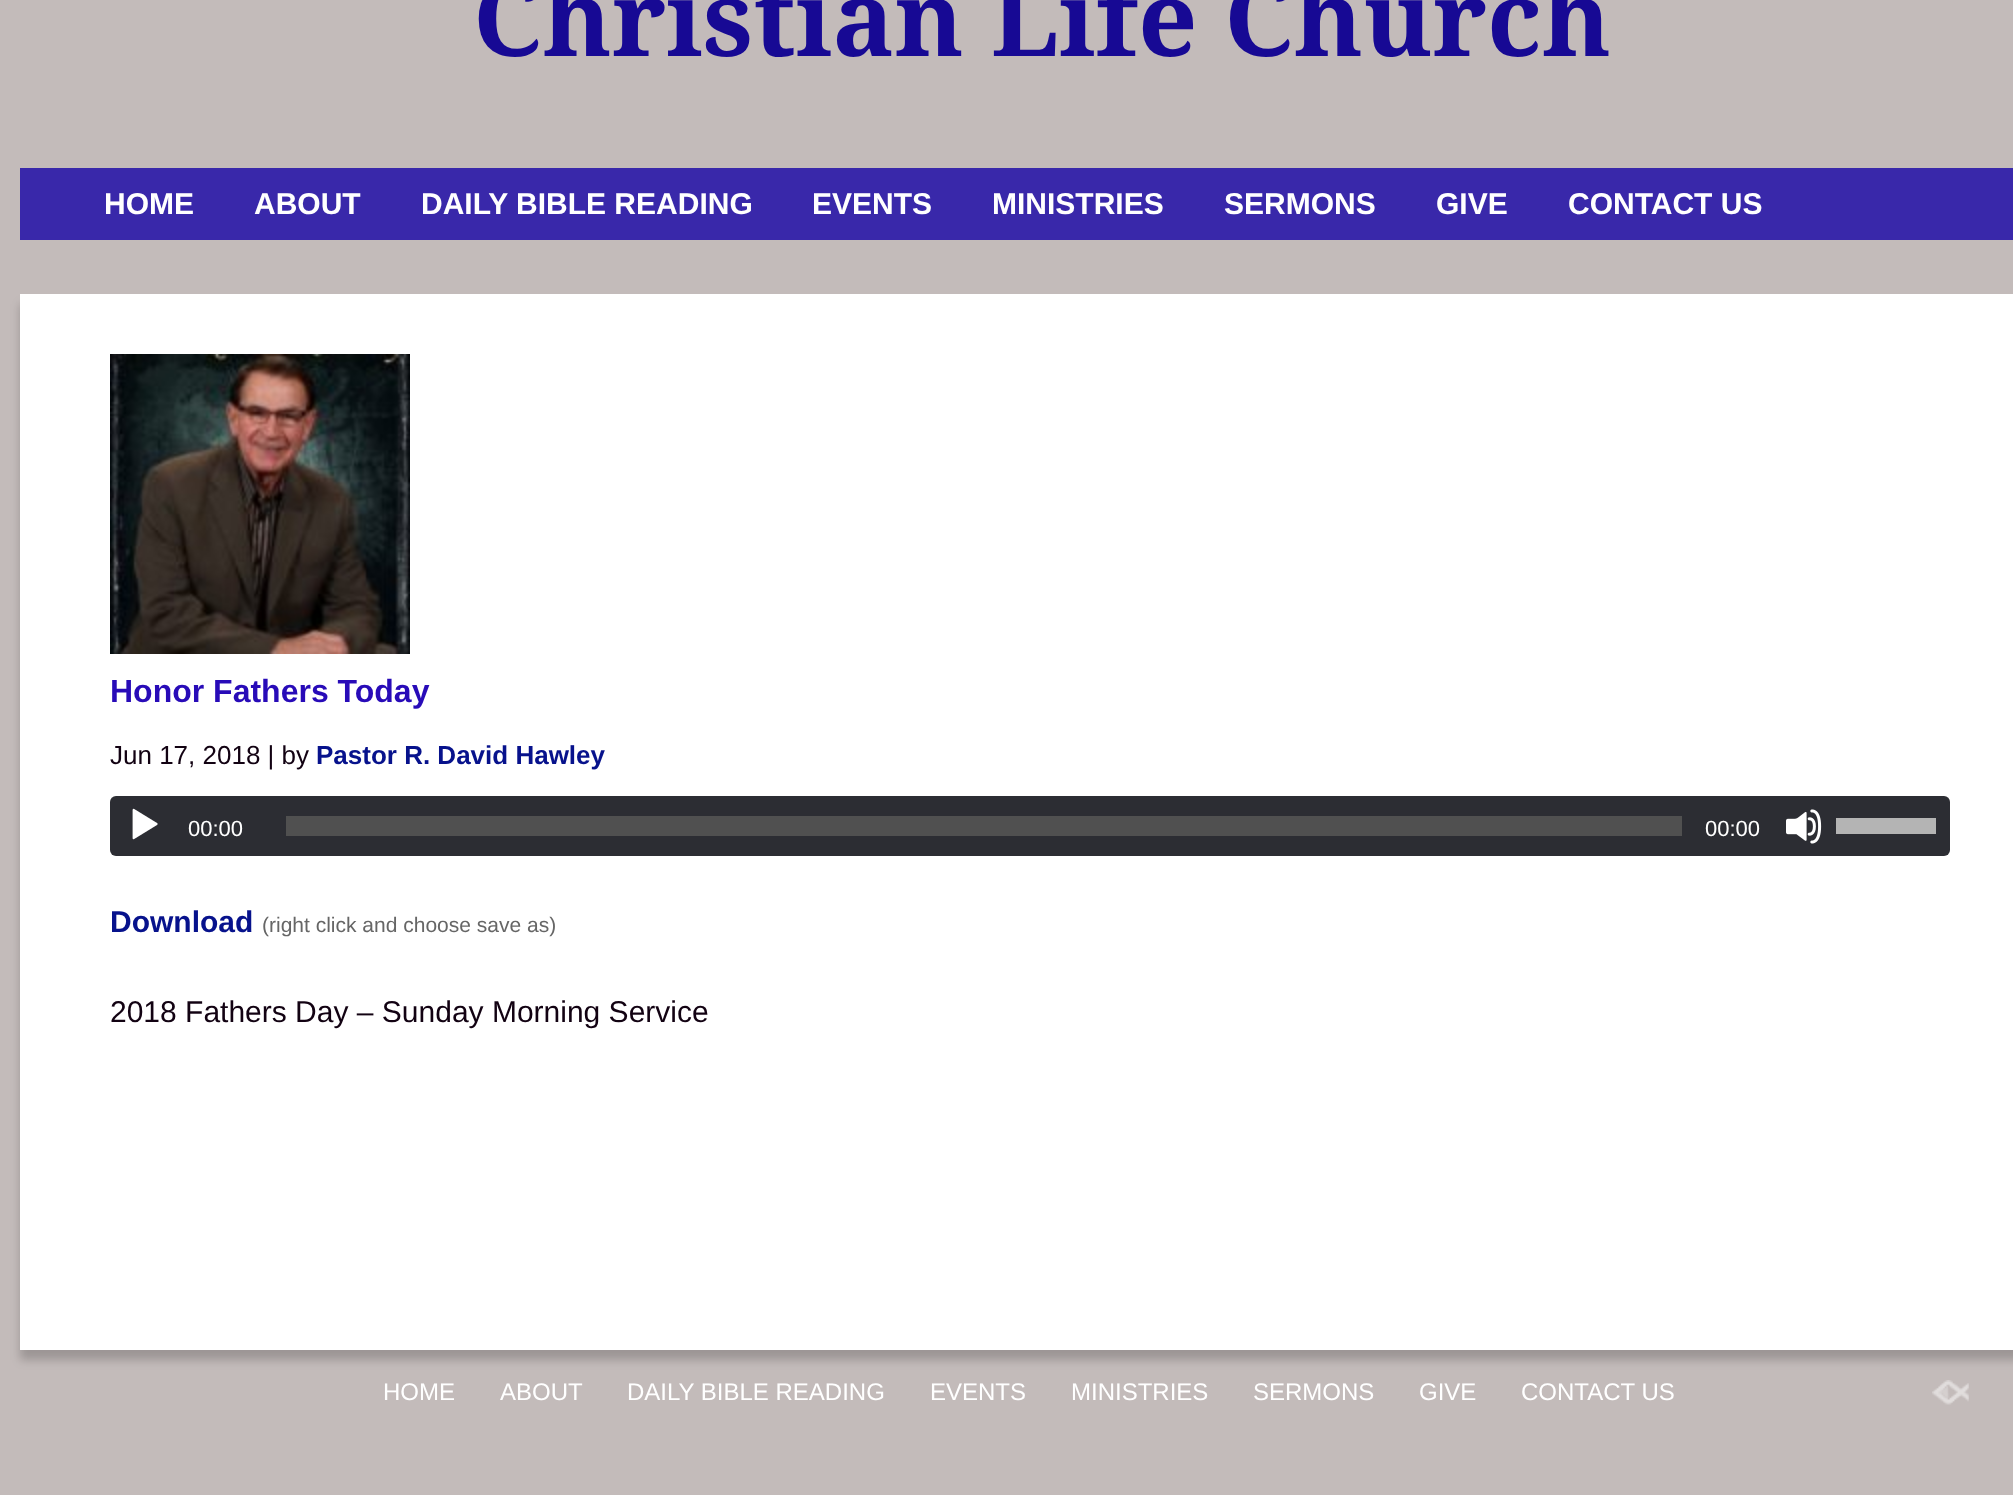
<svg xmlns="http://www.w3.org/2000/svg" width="2013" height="1495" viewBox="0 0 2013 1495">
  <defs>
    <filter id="blur1" x="-50%" y="-200%" width="200%" height="500%"><feGaussianBlur stdDeviation="5"/></filter>
  </defs>
  <rect width="100%" height="100%" fill="#c3bbba"/>
  <text x="473" y="56" font-family="Droid Serif" font-size="104" font-weight="bold" fill="#170994">Christian Life Church</text>
  <rect x="20" y="168" width="1993" height="72" fill="#3928aa"/>
  <text x="104" y="214" font-family="Liberation Sans" font-size="30" font-weight="bold" fill="#ffffff">HOME</text>
  <text x="254" y="214" font-family="Liberation Sans" font-size="30" font-weight="bold" fill="#ffffff">ABOUT</text>
  <text x="421" y="214" font-family="Liberation Sans" font-size="30" font-weight="bold" fill="#ffffff">DAILY BIBLE READING</text>
  <text x="812" y="214" font-family="Liberation Sans" font-size="30" font-weight="bold" fill="#ffffff">EVENTS</text>
  <text x="992" y="214" font-family="Liberation Sans" font-size="30" font-weight="bold" fill="#ffffff">MINISTRIES</text>
  <text x="1224" y="214" font-family="Liberation Sans" font-size="30" font-weight="bold" fill="#ffffff">SERMONS</text>
  <text x="1436" y="214" font-family="Liberation Sans" font-size="30" font-weight="bold" fill="#ffffff">GIVE</text>
  <text x="1568" y="214" font-family="Liberation Sans" font-size="30" font-weight="bold" fill="#ffffff">CONTACT US</text>
  <rect x="20" y="304" width="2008" height="1056" fill="#000000" fill-opacity="0.2" filter="url(#blur1)"/>
  <rect x="20" y="294" width="1993" height="1056" fill="#ffffff"/>
  <image x="110" y="354" width="300" height="300" href="img1.png"/>
  <text x="110" y="702" font-family="Liberation Sans" font-size="32" font-weight="bold" fill="#280bb8">Honor Fathers Today</text>
  <text x="110" y="764" font-family="Liberation Sans" font-size="26" fill="#120212">Jun 17, 2018 | by</text>
  <text x="316" y="764" font-family="Liberation Sans" font-size="26" font-weight="bold" fill="#07128c">Pastor R. David Hawley</text>
  <rect x="110" y="796" width="1840" height="60" rx="6" fill="#2c2d33"/>
  <image x="132" y="808" width="26" height="32" href="img2.png"/>
  <text x="188" y="836" font-family="Liberation Sans" font-size="22" fill="#ffffff">00:00</text>
  <rect x="286" y="816" width="1396" height="20" fill="#505050"/>
  <text x="1705" y="836" font-family="Liberation Sans" font-size="22" fill="#ffffff">00:00</text>
  <image x="1786" y="809" width="36" height="35" href="img3.png"/>
  <rect x="1836" y="818" width="100" height="16" fill="#b4b4b4"/>
  <text x="110" y="932" font-family="Liberation Sans" font-size="30" font-weight="bold" fill="#07128c">Download</text>
  <text x="262" y="932" font-family="Liberation Sans" font-size="21" fill="#666666">(right click and choose save as)</text>
  <text x="110" y="1022" font-family="Liberation Sans" font-size="30" fill="#120212">2018 Fathers Day – Sunday Morning Service</text>
  <text x="383" y="1400" font-family="Liberation Sans" font-size="24" fill="#ffffff">HOME</text>
  <text x="500" y="1400" font-family="Liberation Sans" font-size="24" fill="#ffffff">ABOUT</text>
  <text x="627" y="1400" font-family="Liberation Sans" font-size="24" fill="#ffffff">DAILY BIBLE READING</text>
  <text x="930" y="1400" font-family="Liberation Sans" font-size="24" fill="#ffffff">EVENTS</text>
  <text x="1071" y="1400" font-family="Liberation Sans" font-size="24" fill="#ffffff">MINISTRIES</text>
  <text x="1253" y="1400" font-family="Liberation Sans" font-size="24" fill="#ffffff">SERMONS</text>
  <text x="1419" y="1400" font-family="Liberation Sans" font-size="24" fill="#ffffff">GIVE</text>
  <text x="1521" y="1400" font-family="Liberation Sans" font-size="24" fill="#ffffff">CONTACT US</text>
  <image x="1932" y="1380" width="37" height="25" href="img4.png"/>
</svg>
